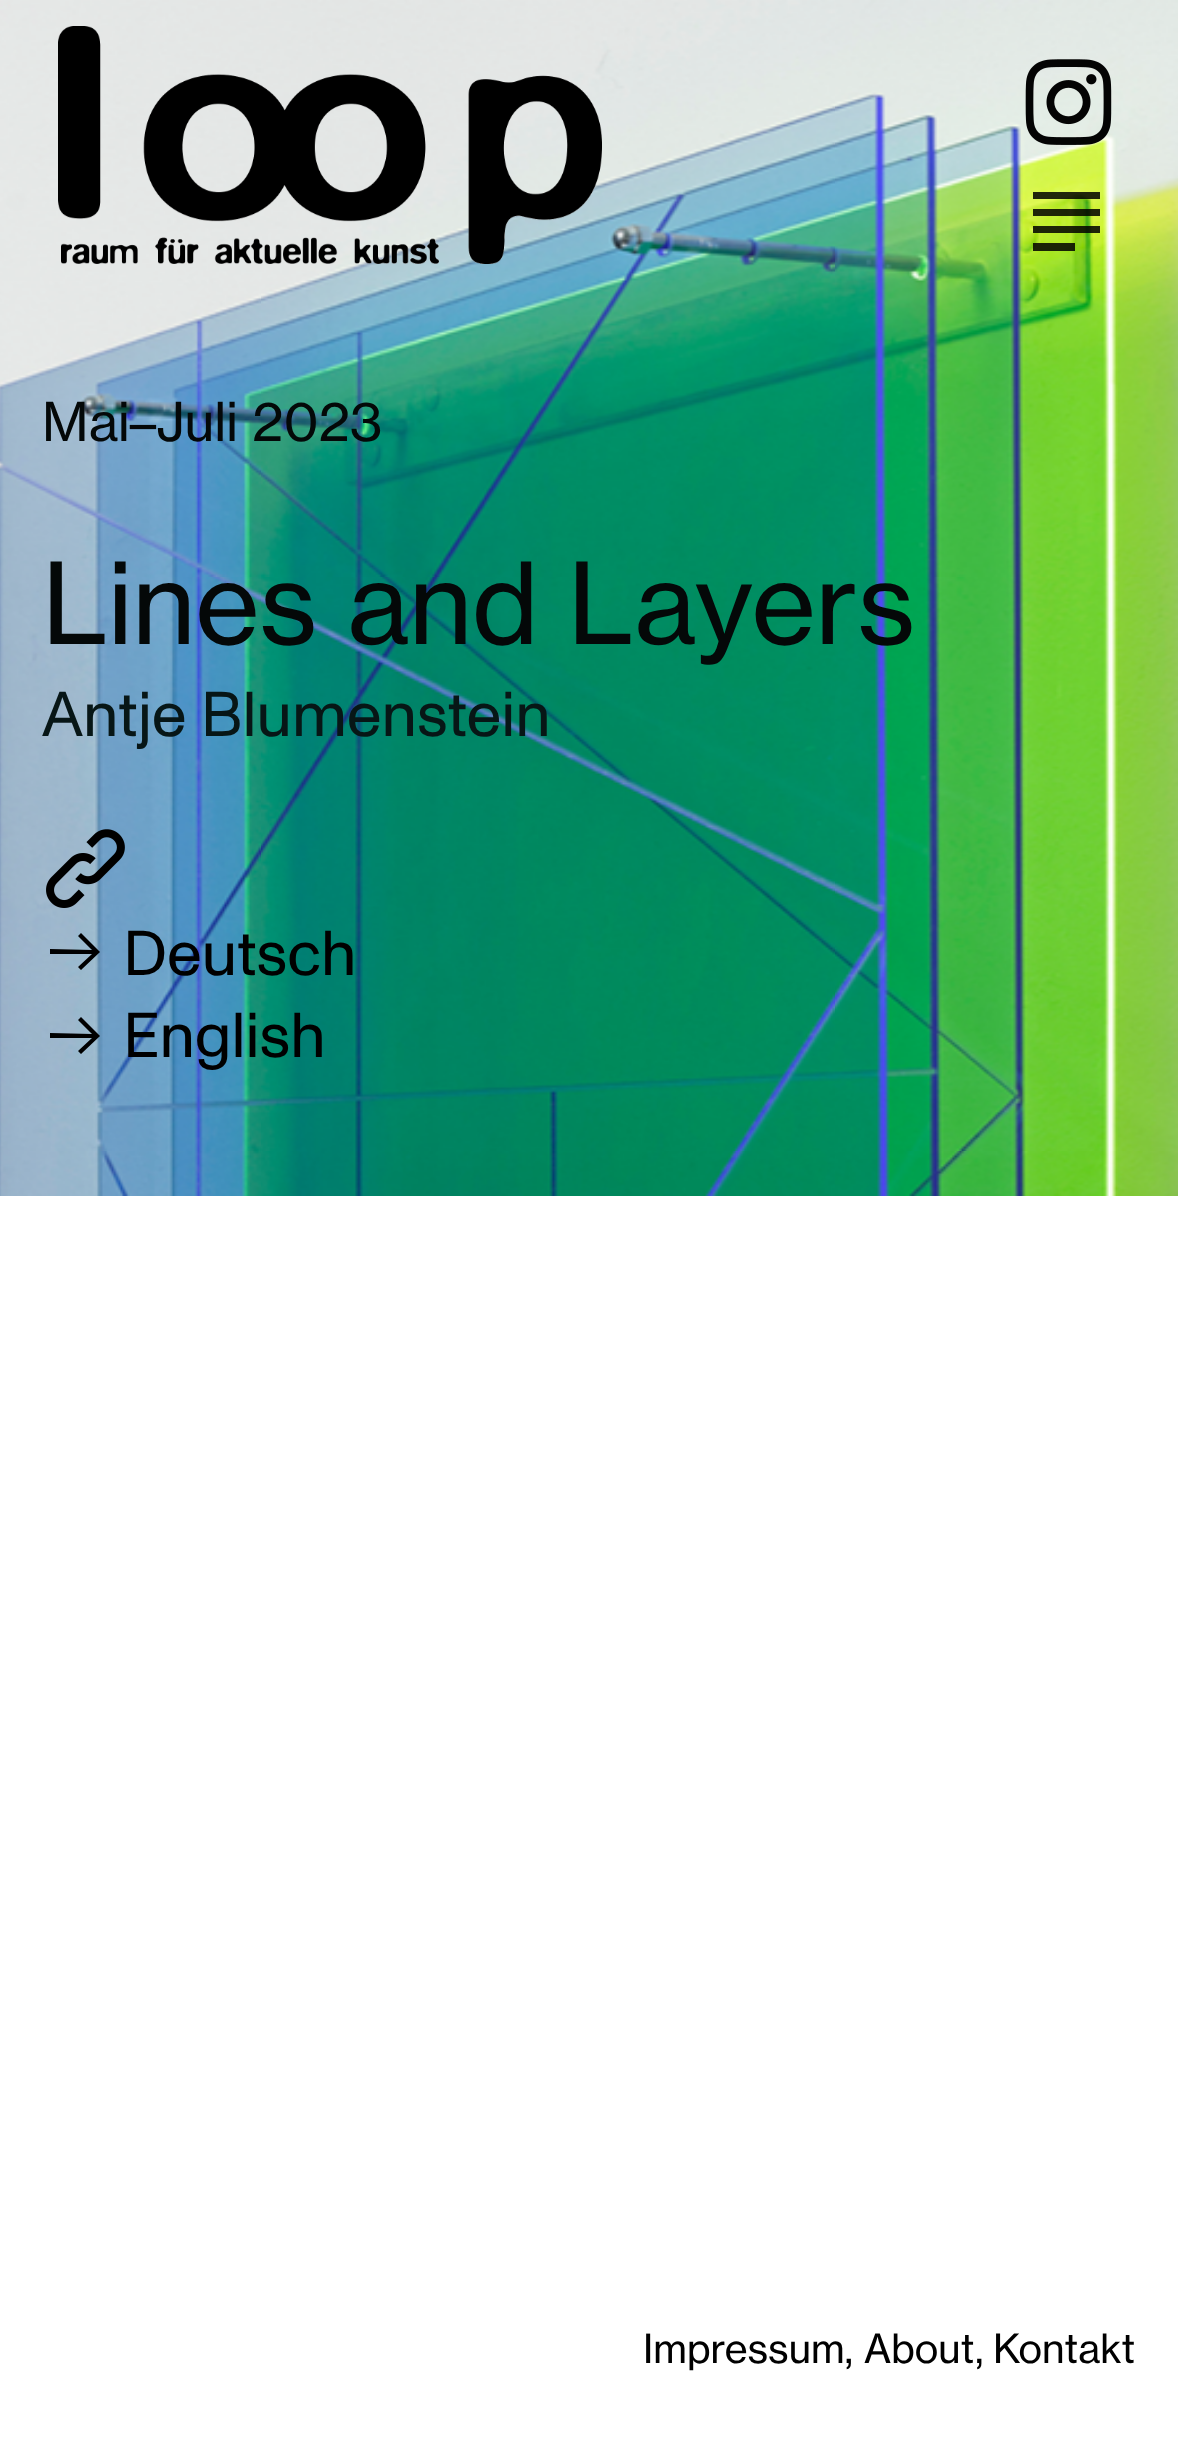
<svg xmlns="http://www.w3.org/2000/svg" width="1178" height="2444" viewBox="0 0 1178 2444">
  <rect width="100%" height="100%" fill="#ffffff"/>
  <image x="0" y="0" width="1178" height="1196" href="img3.png"/>
  <image x="58" y="26" width="544" height="238" href="img1.png"/>
  <image x="1025" y="59" width="87" height="86" href="img2.png"/>
  <path d="M1100 199V192H1033V199ZM1100 216V209H1033V216ZM1100 233V226H1033V233ZM1075 251V243H1033V251Z" fill="#000000" fill-opacity="0.85"/>
  <text x="42" y="441" font-family="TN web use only" font-size="52.75" fill="#040808">Mai–Juli 2023</text>
  <text x="42" y="644" font-family="TN web use only" font-size="110.75" fill="#040808">Lines and Layers</text>
  <text x="42" y="736" font-family="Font" font-size="63.25" fill="#071616">Antje Blumenstein</text>
  <image x="46" y="829" width="79" height="79" href="img4.png"/>
  <text x="123" y="975" font-family="Font" font-size="63.25" fill="#000000">Deutsch</text>
  <path d="M50 954H92L78 967L81 970L100 952L81 933L78 936L92 950L50 949Z" fill="#000000"/>
  <text x="123" y="1057" font-family="Font" font-size="63.25" fill="#000000">English</text>
  <path d="M50 1038H92L78 1051L81 1054L100 1036L81 1017L78 1020L92 1034L50 1033Z" fill="#000000"/>
  <text x="643" y="2363" font-family="TN web use only" font-size="39.5" fill="#000000">Impressum, About</text>
  <text x="975" y="2363" font-family="TN web use only" font-size="39.5" fill="#000000">,</text>
  <text x="993" y="2363" font-family="TN web use only" font-size="39.5" fill="#000000">Kontakt</text>
</svg>
